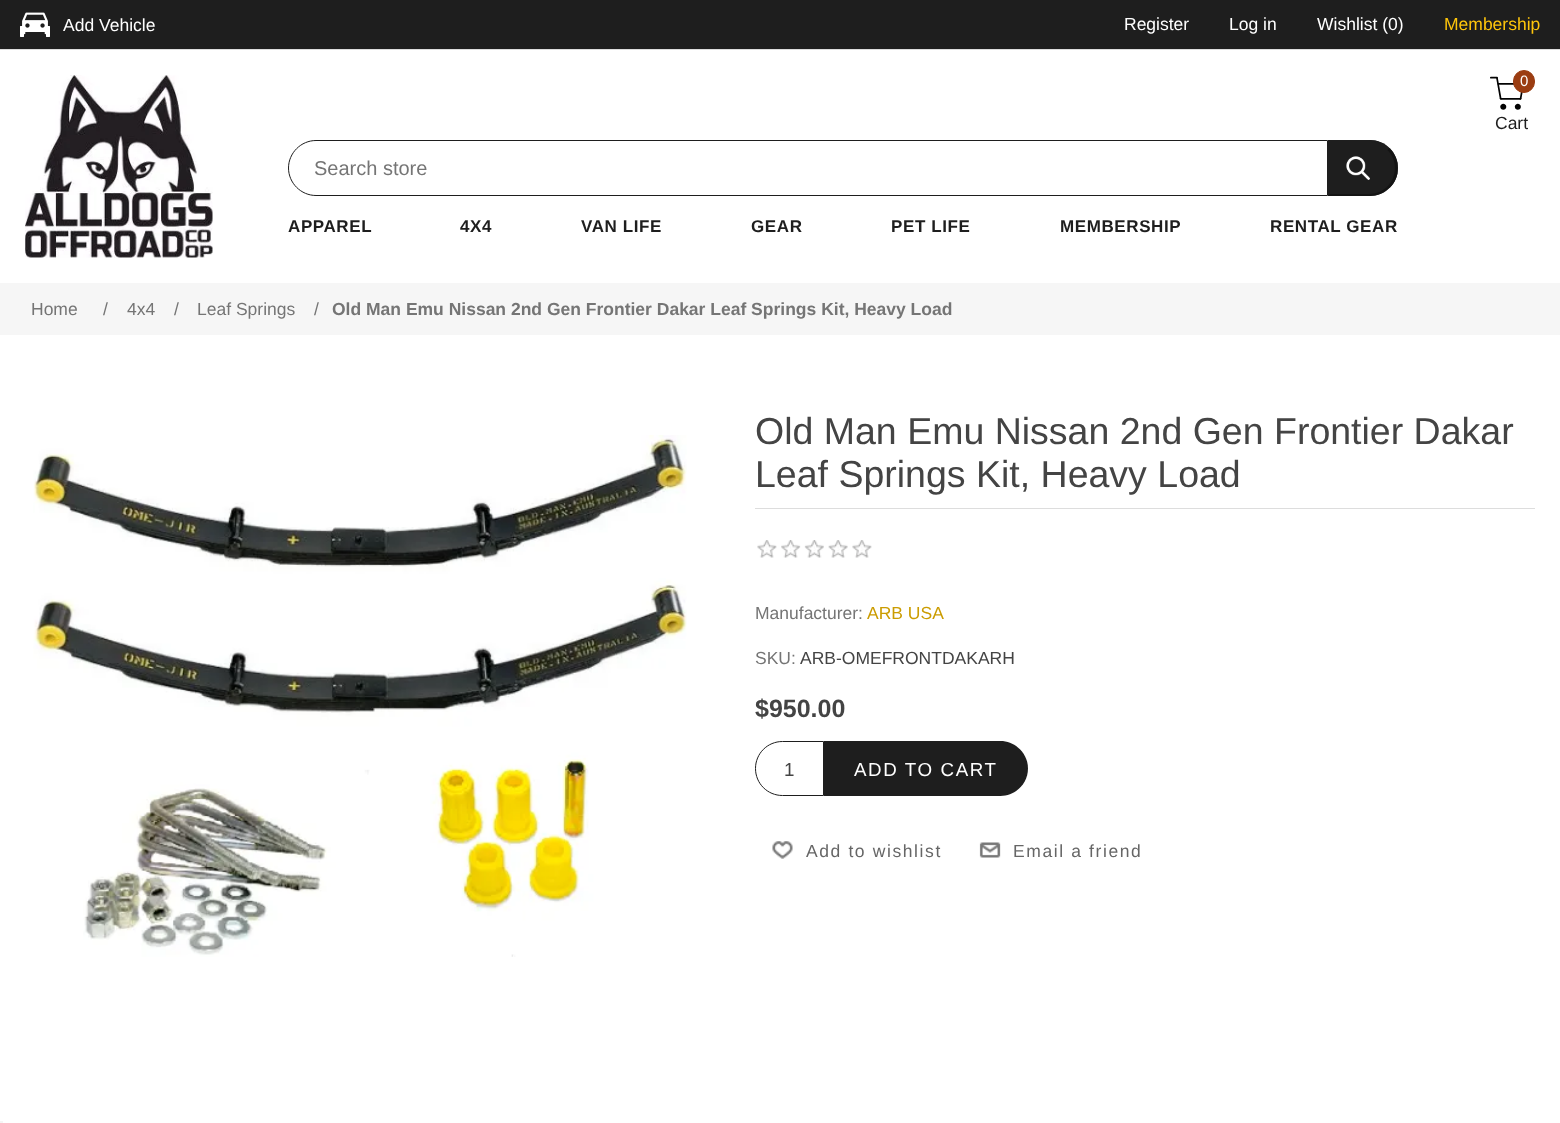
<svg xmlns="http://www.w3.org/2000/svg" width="1560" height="1123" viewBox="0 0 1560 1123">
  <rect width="100%" height="100%" fill="#ffffff"/>
  <rect x="0" y="0" width="1560" height="49" fill="#1e1e1e"/>
  <rect x="0" y="49" width="1560" height="1" fill="#dddddd"/>
  <image x="20" y="12" width="30" height="25" href="img1.png"/>
  <text x="63" y="31" font-family="Liberation Sans" font-size="17.5" fill="#ffffff">Add Vehicle</text>
  <text x="1124" y="30" font-family="Liberation Sans" font-size="17.5" fill="#ffffff">Register</text>
  <text x="1229" y="30" font-family="Liberation Sans" font-size="17.5" fill="#ffffff">Log in</text>
  <text x="1317" y="30" font-family="Liberation Sans" font-size="17.5" fill="#ffffff">Wishlist (0)</text>
  <text x="1444" y="30" font-family="Liberation Sans" font-size="17.5" fill="#fec50b">Membership</text>
  <image x="25" y="75" width="188" height="183" href="img2.png"/>
  <image x="1490" y="76" width="33" height="34" href="img3.png"/>
  <rect x="1513.5" y="70.5" width="21" height="22" rx="10.5" fill="#9b3d12" stroke="#9b3d12"/>
  <text x="1520" y="86" font-family="Liberation Sans" font-size="15" fill="#ffffff">0</text>
  <text x="1495" y="129" font-family="Liberation Sans" font-size="17.5" fill="#1e1e1e">Cart</text>
  <path d="M316 140.5H1327.5V195.5H316C301 195.5 288.5 183 288.5 168C288.5 153 301 140.5 316 140.5Z" fill="none" stroke="#1e1e1e"/>
  <text x="314" y="175" font-family="Liberation Sans" font-size="20" fill="#757575">Search store</text>
  <path d="M1328 140H1370C1385.5 140 1398 152.5 1398 168C1398 183.5 1385.5 196 1370 196H1328Z" fill="#1e1e1e"/>
  <path d="M1328 140L1330 142H1369C1377 142 1383 145 1388 150L1389 148C1384 143 1377 140 1369 140Z" fill="#1e1e1e"/>
  <path d="M1397.5 173.5C1396.5 179 1393.5 184.5 1389.5 188L1387.5 186.5C1397.5 176.5 1397.5 160 1387.5 150L1389.5 148C1393.5 152 1396.5 157.5 1397.5 163Z" fill="#141414"/>
  <path d="M1389 188C1384 193 1377 196 1369 196H1328L1330 194H1369C1376 194 1383 191 1388 186Z" fill="#141414"/>
  <image x="1346" y="156" width="24" height="24" href="img4.png"/>
  <text x="288" y="232" font-family="Liberation Sans" font-size="17" font-weight="bold" letter-spacing="0.6" fill="#1e1e1e">APPAREL</text>
  <text x="460" y="232" font-family="Liberation Sans" font-size="17" font-weight="bold" letter-spacing="0.6" fill="#1e1e1e">4X4</text>
  <text x="581" y="232" font-family="Liberation Sans" font-size="17" font-weight="bold" letter-spacing="0.6" fill="#1e1e1e">VAN LIFE</text>
  <text x="751" y="232" font-family="Liberation Sans" font-size="17" font-weight="bold" letter-spacing="0.6" fill="#1e1e1e">GEAR</text>
  <text x="891" y="232" font-family="Liberation Sans" font-size="17" font-weight="bold" letter-spacing="0.6" fill="#1e1e1e">PET LIFE</text>
  <text x="1060" y="232" font-family="Liberation Sans" font-size="17" font-weight="bold" letter-spacing="0.6" fill="#1e1e1e">MEMBERSHIP</text>
  <text x="1270" y="232" font-family="Liberation Sans" font-size="17" font-weight="bold" letter-spacing="0.6" fill="#1e1e1e">RENTAL GEAR</text>
  <rect x="0" y="283" width="1560" height="52" fill="#f6f6f6"/>
  <text x="31" y="315" font-family="Liberation Sans" font-size="17.5" fill="#757575">Home</text>
  <text x="103" y="315" font-family="Liberation Sans" font-size="17.5" fill="#757575">/</text>
  <text x="127" y="315" font-family="Liberation Sans" font-size="17.5" fill="#757575">4x4</text>
  <text x="174" y="315" font-family="Liberation Sans" font-size="17.5" fill="#757575">/</text>
  <text x="197" y="315" font-family="Liberation Sans" font-size="17.5" fill="#757575">Leaf Springs</text>
  <text x="314" y="315" font-family="Liberation Sans" font-size="17.5" fill="#757575">/</text>
  <text x="332" y="315" font-family="Liberation Sans" font-size="17.5" font-weight="bold" fill="#757575">Old Man Emu Nissan 2nd Gen Frontier Dakar Leaf Springs Kit, Heavy Load</text>
  <image x="33" y="435" width="654" height="522" href="img5.png"/>
  <rect x="755" y="508" width="780" height="1" fill="#dddddd"/>
  <text x="755" y="444" font-family="Liberation Sans" font-size="37.5" fill="#444444">Old Man Emu Nissan 2nd Gen Frontier Dakar</text>
  <text x="755" y="487" font-family="Liberation Sans" font-size="37.5" fill="#444444">Leaf Springs Kit, Heavy Load</text>
  <image x="757" y="540" width="115" height="18" href="img6.png"/>
  <text x="755" y="619" font-family="Liberation Sans" font-size="17.5" fill="#757575">Manufacturer:</text>
  <text x="867" y="619" font-family="Liberation Sans" font-size="17.5" fill="#cb9c01">ARB USA</text>
  <text x="755" y="664" font-family="Liberation Sans" font-size="17.5" fill="#757575">SKU:</text>
  <text x="800" y="664" font-family="Liberation Sans" font-size="17.5" fill="#444444">ARB-OMEFRONTDAKARH</text>
  <text x="755" y="717" font-family="Liberation Sans" font-size="25" font-weight="bold" fill="#444444">$950.00</text>
  <path d="M782.5 741.5H823.5V795.5H782.5C767.5 795.5 755.5 783.5 755.5 768.5C755.5 753.5 767.5 741.5 782.5 741.5Z" fill="none" stroke="#1e1e1e"/>
  <text x="784" y="776" font-family="Liberation Sans" font-size="18.75" fill="#444444">1</text>
  <path d="M824 741H1000.5C1015.5 741 1028 753.5 1028 768.5C1028 783.5 1015.5 796 1000.5 796H824Z" fill="#1e1e1e"/>
  <text x="854" y="776" font-family="Liberation Sans" font-size="18.75" letter-spacing="1.6" fill="#ffffff">ADD TO CART</text>
  <image x="772" y="841" width="21" height="18" href="img7.png"/>
  <text x="806" y="857" font-family="Liberation Sans" font-size="17.5" letter-spacing="1.6" fill="#666666">Add to wishlist</text>
  <image x="979" y="842" width="22" height="16" href="img8.png"/>
  <text x="1013" y="857" font-family="Liberation Sans" font-size="17.5" letter-spacing="1.6" fill="#666666">Email a friend</text>
  <rect x="0" y="1121" width="3" height="2" fill="#f5f5f5"/>
</svg>
